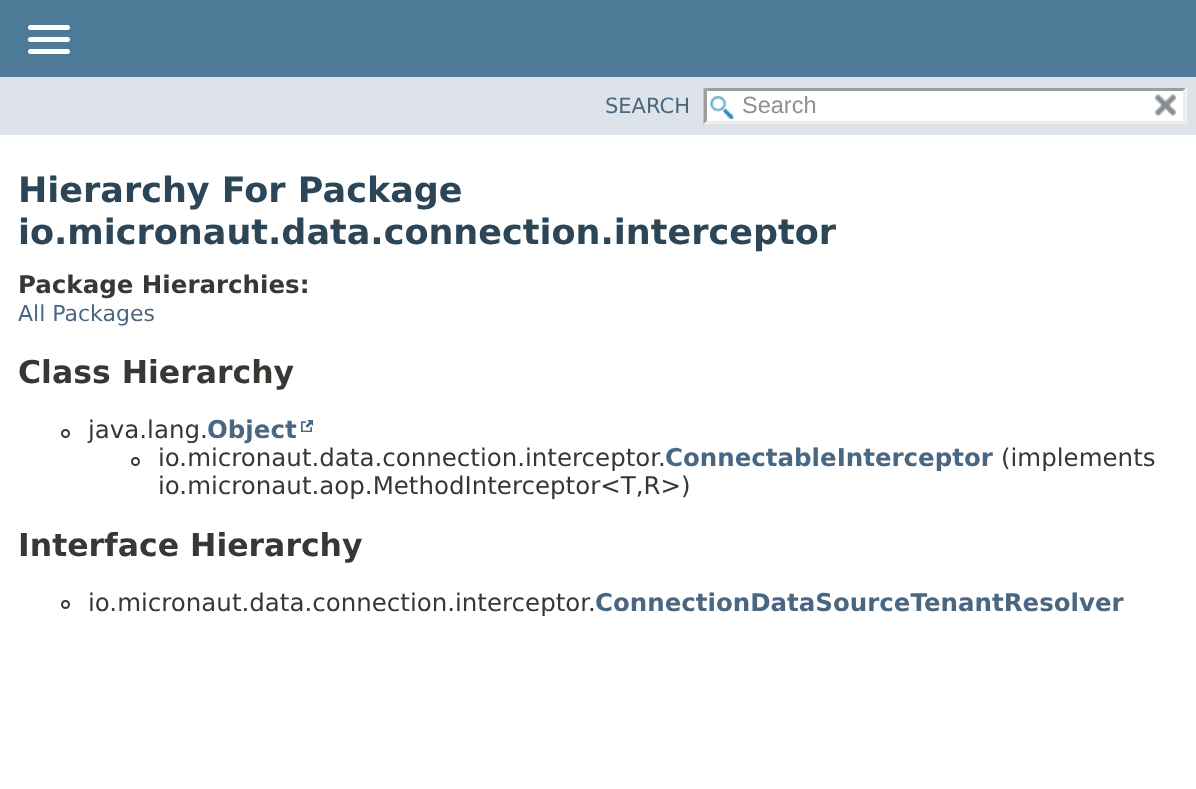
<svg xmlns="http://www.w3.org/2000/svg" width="1196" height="789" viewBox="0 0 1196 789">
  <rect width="100%" height="100%" fill="#ffffff"/>
  <rect x="0" y="0" width="1196" height="77" fill="#4d7a97"/>
  <rect x="28" y="25" width="42" height="5" rx="2.5" fill="#ffffff"/>
  <rect x="28" y="37" width="42" height="5" rx="2.5" fill="#ffffff"/>
  <rect x="28" y="49" width="42" height="5" rx="2.5" fill="#ffffff"/>
  <rect x="0" y="77" width="1196" height="58" fill="#dee3e9"/>
  <text x="605" y="113" font-family="DejaVu Sans" font-size="21" fill="#4a6782">SEARCH</text>
  <rect x="704" y="88" width="483" height="36" fill="#ffffff"/>
  <image x="710" y="96" width="24" height="23" href="img1.png"/>
  <path d="M704 88H1186L1183 91H707Z" fill="#9e9e9e"/>
  <path d="M1186.5 87.5V124L1183 121V91Z" fill="#ededed"/>
  <path d="M1186 124H704L707 121H1183Z" fill="#ededed"/>
  <path d="M703.5 124V87.5L707 91V121Z" fill="#9e9e9e"/>
  <text x="742" y="113" font-family="Liberation Sans" font-size="23.5" fill="#909090">Search</text>
  <image x="1155" y="94" width="21" height="22" href="img2.png"/>
  <text x="18" y="202" font-family="DejaVu Sans" font-size="35" font-weight="bold" fill="#2c4557">Hierarchy For Package</text>
  <text x="18" y="244" font-family="DejaVu Sans" font-size="35" font-weight="bold" fill="#2c4557">io.micronaut.data.connection.interceptor</text>
  <text x="18" y="293" font-family="DejaVu Sans" font-size="24.5" font-weight="bold" fill="#353833">Package Hierarchies:</text>
  <text x="18" y="321" font-family="DejaVu Sans" font-size="22" fill="#4a6782">All Packages</text>
  <text x="18" y="383" font-family="DejaVu Sans" font-size="31.5" font-weight="bold" fill="#353833">Class Hierarchy</text>
  <circle cx="65.5" cy="433.5" r="3.5" fill="none" stroke="#353833" stroke-width="2"/>
  <text x="88" y="438" font-family="DejaVu Sans" font-size="24.5" fill="#353833">java.lang.</text>
  <text x="207" y="438" font-family="DejaVu Sans" font-size="24.5" font-weight="bold" fill="#4a6782">Object</text>
  <image x="301" y="420" width="12" height="12" href="img3.png"/>
  <circle cx="135.5" cy="461.5" r="3.5" fill="none" stroke="#353833" stroke-width="2"/>
  <text x="158" y="466" font-family="DejaVu Sans" font-size="24.5" fill="#353833">io.micronaut.data.connection.interceptor.</text>
  <text x="665" y="466" font-family="DejaVu Sans" font-size="24.5" font-weight="bold" fill="#4a6782">ConnectableInterceptor</text>
  <text x="1001" y="466" font-family="DejaVu Sans" font-size="24.5" fill="#353833">(implements</text>
  <text x="158" y="494" font-family="DejaVu Sans" font-size="24.5" fill="#353833">io.micronaut.aop.MethodInterceptor&lt;T,R&gt;)</text>
  <text x="18" y="556" font-family="DejaVu Sans" font-size="31.5" font-weight="bold" fill="#353833">Interface Hierarchy</text>
  <circle cx="65.5" cy="604.5" r="3.5" fill="none" stroke="#353833" stroke-width="2"/>
  <text x="88" y="611" font-family="DejaVu Sans" font-size="24.5" fill="#353833">io.micronaut.data.connection.interceptor.</text>
  <text x="595" y="611" font-family="DejaVu Sans" font-size="24.5" font-weight="bold" fill="#4a6782">ConnectionDataSourceTenantResolver</text>
</svg>
